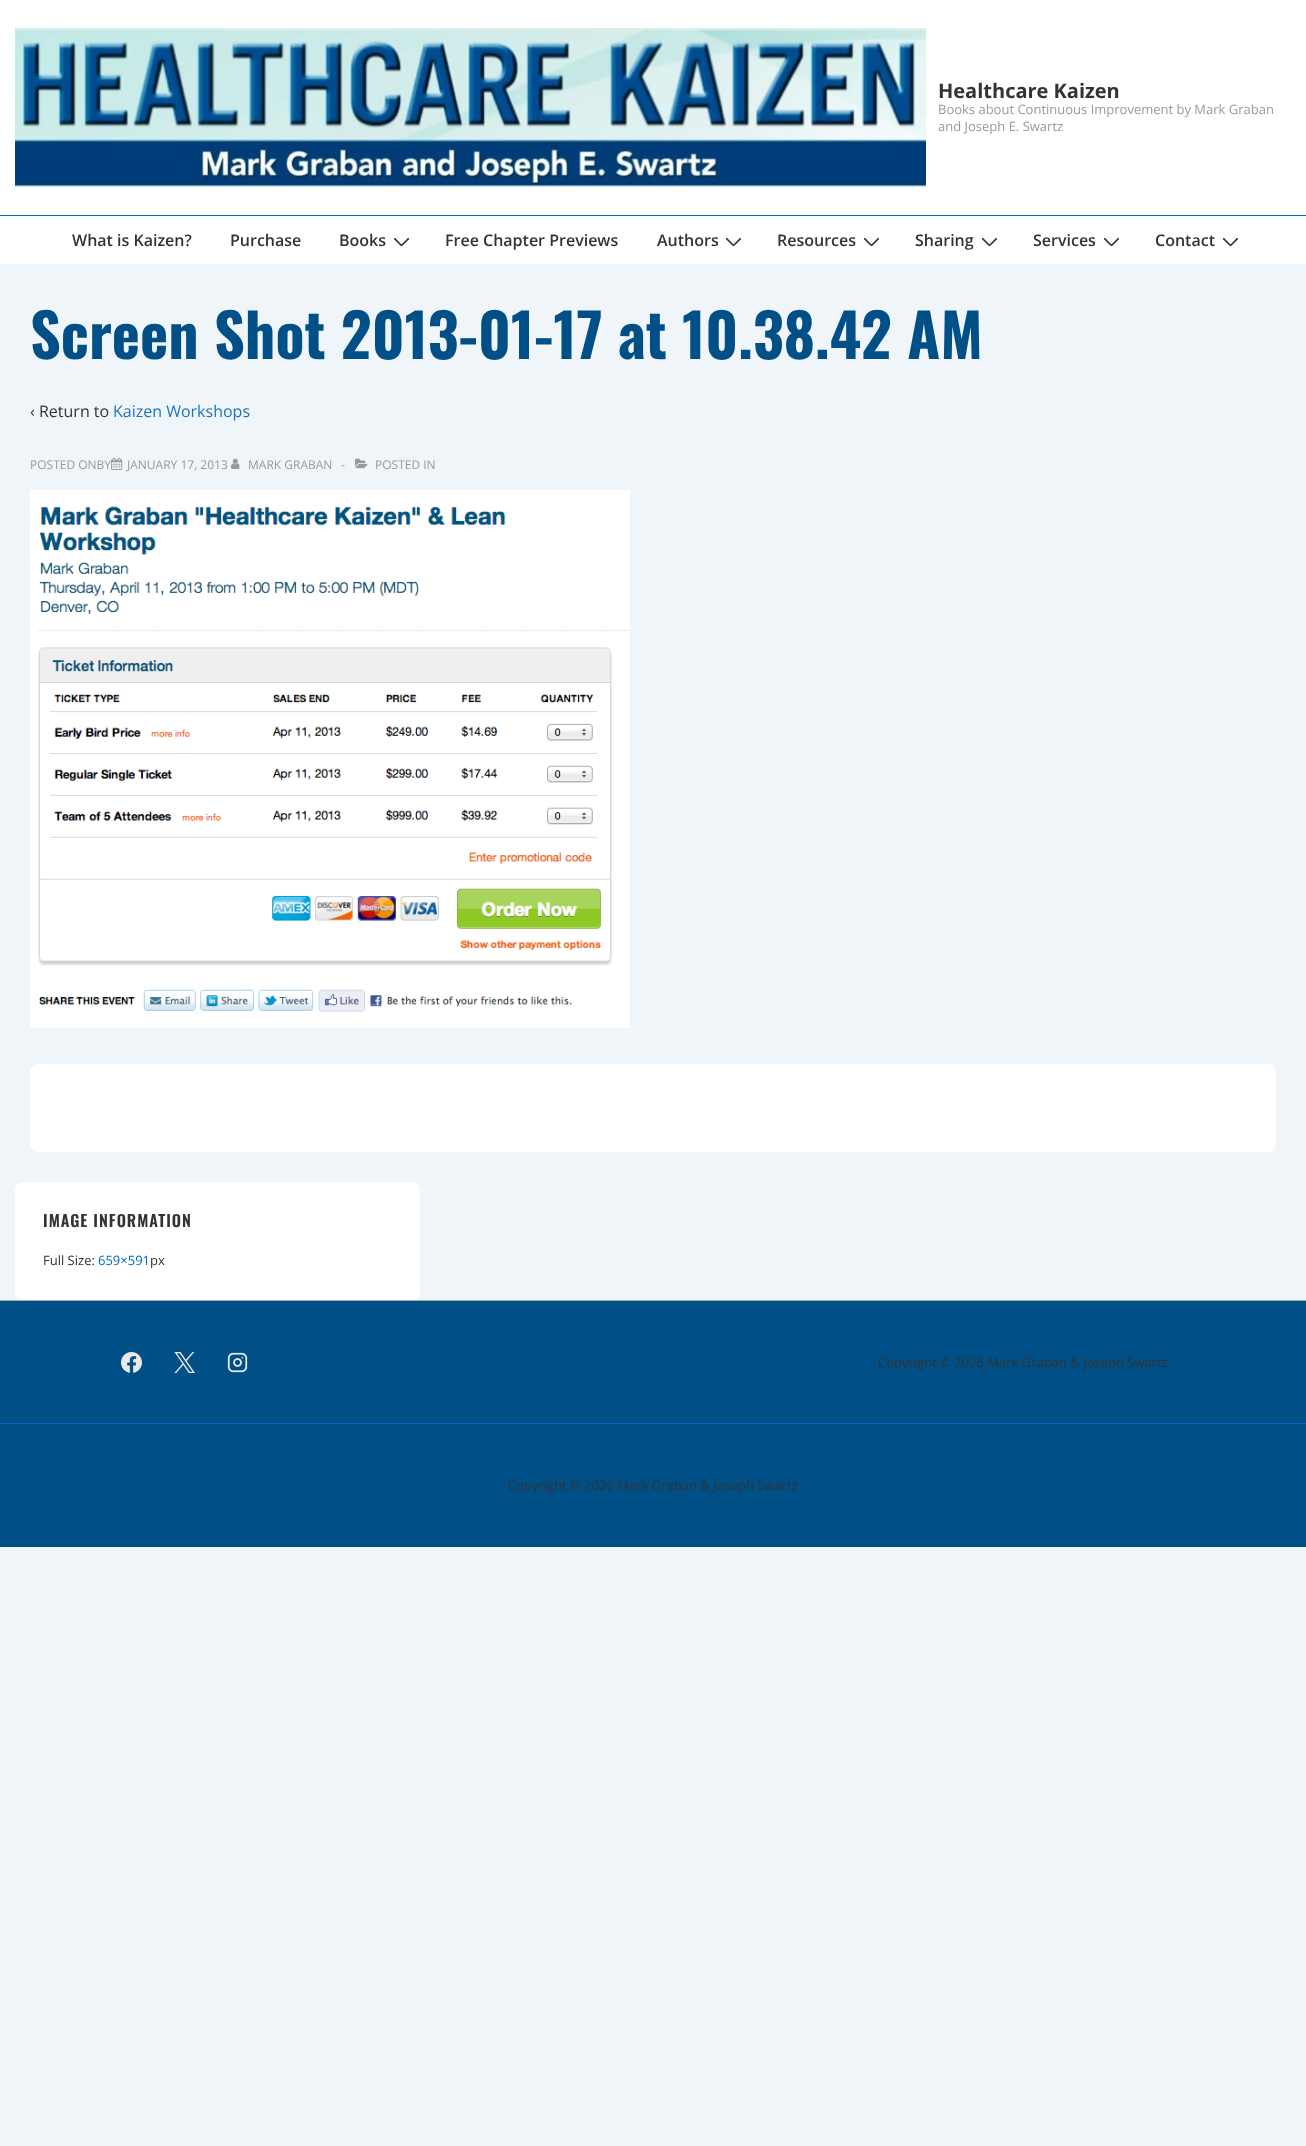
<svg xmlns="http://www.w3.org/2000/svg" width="1306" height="2146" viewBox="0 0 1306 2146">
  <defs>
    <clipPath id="clip1"><rect x="394" y="238" width="15" height="8"/></clipPath>
    <clipPath id="clip2"><rect x="726" y="238" width="15" height="8"/></clipPath>
    <clipPath id="clip3"><rect x="864" y="238" width="15" height="8"/></clipPath>
    <clipPath id="clip4"><rect x="982" y="238" width="15" height="8"/></clipPath>
    <clipPath id="clip5"><rect x="1104" y="238" width="15" height="8"/></clipPath>
    <clipPath id="clip6"><rect x="1223" y="238" width="15" height="8"/></clipPath>
  </defs>
  <rect width="100%" height="100%" fill="#f0f5fa"/>
  <rect x="0" y="0" width="1306" height="215" fill="#ffffff"/>
  <rect x="0" y="215" width="1306" height="1" fill="#0066cc"/>
  <image x="15" y="28" width="911" height="159" href="img1.png"/>
  <text x="938" y="98" font-family="Open Sans" font-size="20" font-weight="bold" fill="#333333">Healthcare Kaizen</text>
  <text x="938" y="114" font-family="Open Sans" font-size="13" fill="#999999">Books about Continuous Improvement by Mark Graban</text>
  <text x="938" y="131" font-family="Open Sans" font-size="13" fill="#999999">and Joseph E. Swartz</text>
  <rect x="0" y="216" width="1306" height="48" fill="#ffffff"/>
  <text x="72" y="246" font-family="Open Sans" font-size="16" font-weight="600" fill="#333333">What is Kaizen?</text>
  <text x="230" y="246" font-family="Open Sans" font-size="16" font-weight="600" fill="#333333">Purchase</text>
  <text x="339" y="246" font-family="Open Sans" font-size="16" font-weight="600" fill="#333333">Books</text>
  <g clip-path="url(#clip1)">
    <path d="M394.5 238.5L401.5 245.5L408.5 238.5" fill="none" stroke="#333333" stroke-width="1.6" stroke-linecap="round"/>
  </g>
  <text x="445" y="246" font-family="Open Sans" font-size="16" font-weight="600" fill="#333333">Free Chapter Previews</text>
  <text x="657" y="246" font-family="Open Sans" font-size="16" font-weight="600" fill="#333333">Authors</text>
  <g clip-path="url(#clip2)">
    <path d="M726.5 238.5L733.5 245.5L740.5 238.5" fill="none" stroke="#333333" stroke-width="1.6" stroke-linecap="round"/>
  </g>
  <text x="777" y="246" font-family="Open Sans" font-size="16" font-weight="600" fill="#333333">Resources</text>
  <g clip-path="url(#clip3)">
    <path d="M864.5 238.5L871.5 245.5L878.5 238.5" fill="none" stroke="#333333" stroke-width="1.6" stroke-linecap="round"/>
  </g>
  <text x="915" y="246" font-family="Open Sans" font-size="16" font-weight="600" fill="#333333">Sharing</text>
  <g clip-path="url(#clip4)">
    <path d="M982.5 238.5L989.5 245.5L996.5 238.5" fill="none" stroke="#333333" stroke-width="1.6" stroke-linecap="round"/>
  </g>
  <text x="1033" y="246" font-family="Open Sans" font-size="16" font-weight="600" fill="#333333">Services</text>
  <g clip-path="url(#clip5)">
    <path d="M1104.5 238.5L1111.5 245.5L1118.5 238.5" fill="none" stroke="#333333" stroke-width="1.6" stroke-linecap="round"/>
  </g>
  <text x="1155" y="246" font-family="Open Sans" font-size="16" font-weight="600" fill="#333333">Contact</text>
  <g clip-path="url(#clip6)">
    <path d="M1223.5 238.5L1230.5 245.5L1237.5 238.5" fill="none" stroke="#333333" stroke-width="1.6" stroke-linecap="round"/>
  </g>
  <text x="30" y="359" font-family="Oswald" font-size="60" font-weight="bold" fill="#004f87">Screen Shot 2013-01-17 at 10.38.42 AM</text>
  <text x="30" y="417" font-family="Open Sans" font-size="16" fill="#333333">‹ Return to</text>
  <text x="113" y="417" font-family="Open Sans" font-size="16" fill="#1e73be">Kaizen Workshops</text>
  <text x="30" y="469" font-family="Open Sans" font-size="12" fill="#999999">POSTED ONBY</text>
  <image x="111" y="457" width="12" height="13" href="img2.png"/>
  <text x="127" y="469" font-family="Open Sans" font-size="12" fill="#999999">JANUARY 17, 2013</text>
  <image x="231" y="458" width="9" height="11" href="img3.png"/>
  <text x="248" y="469" font-family="Open Sans" font-size="12" fill="#999999">MARK GRABAN</text>
  <text x="341" y="469" font-family="Open Sans" font-size="12" fill="#999999">-</text>
  <image x="355" y="458" width="13" height="11" href="img4.png"/>
  <text x="375" y="469" font-family="Open Sans" font-size="12" fill="#999999">POSTED IN</text>
  <image x="30" y="490" width="600" height="538" href="img5.png"/>
  <rect x="30" y="1064" width="1246" height="88" rx="8" fill="#ffffff"/>
  <rect x="15" y="1182" width="405" height="118" rx="8" fill="#ffffff"/>
  <text x="43" y="1227" font-family="Oswald" font-size="16" font-weight="600" letter-spacing="1" fill="#333333">IMAGE INFORMATION</text>
  <text x="43" y="1265" font-family="Open Sans" font-size="13" fill="#333333">Full Size:</text>
  <text x="98" y="1265" font-family="Open Sans" font-size="13" fill="#0066cc">659×591</text>
  <text x="150" y="1265" font-family="Open Sans" font-size="13" fill="#333333">px</text>
  <rect x="0" y="1301" width="1306" height="246" fill="#004f87"/>
  <rect x="0" y="1300" width="1306" height="1" fill="#aaaaaa"/>
  <image x="121" y="1352" width="21" height="21" href="img6.png"/>
  <image x="174" y="1352" width="21" height="21" href="img7.png"/>
  <image x="227" y="1352" width="21" height="21" href="img8.png"/>
  <text x="878" y="1367" font-family="Open Sans" font-size="13" fill="#333333">Copyright © 2026 Mark Graban &amp; Joseph Swartz</text>
  <rect x="0" y="1423" width="1306" height="1" fill="#0066cc"/>
  <text x="508" y="1490" font-family="Open Sans" font-size="13" fill="#333333">Copyright © 2026 Mark Graban &amp; Joseph Swartz</text>
</svg>
